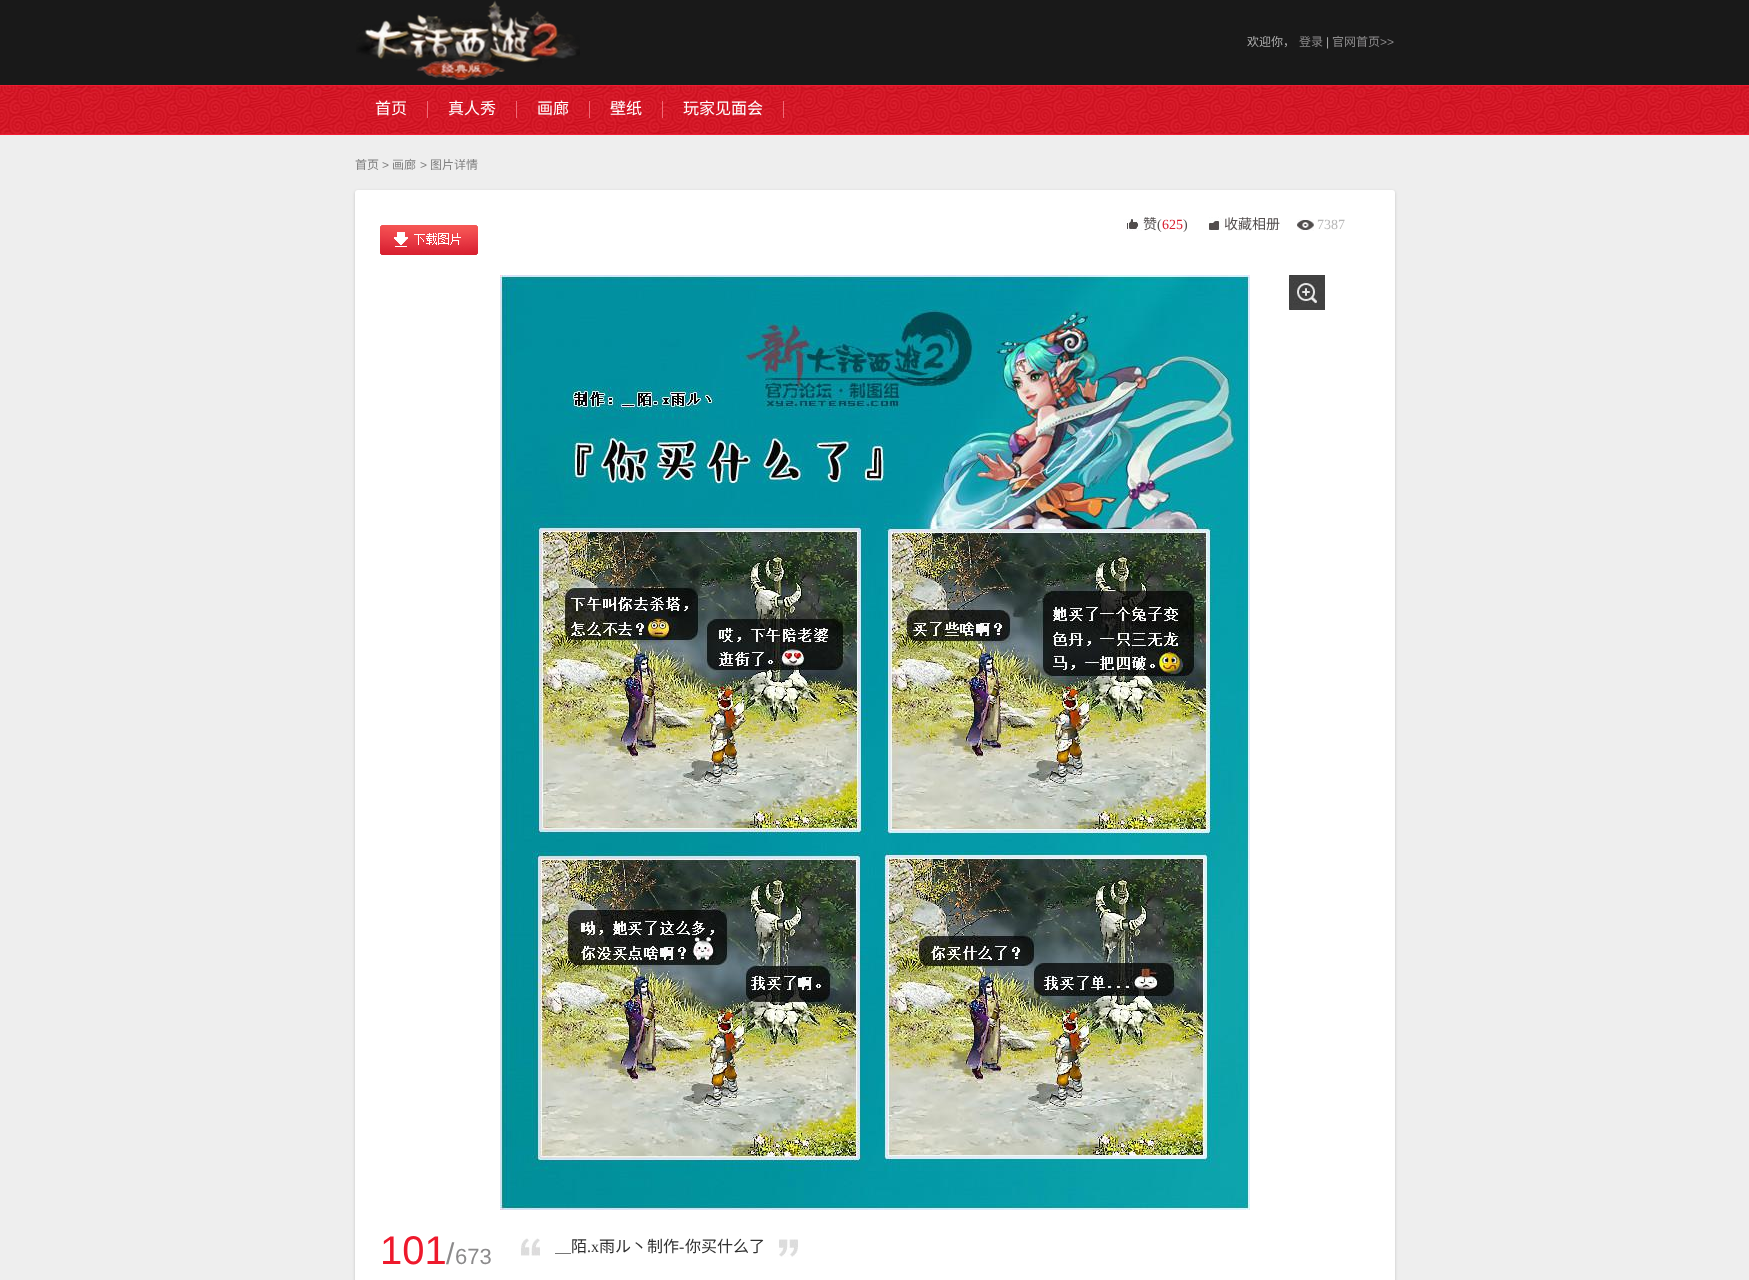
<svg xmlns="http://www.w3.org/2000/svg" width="1749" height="1280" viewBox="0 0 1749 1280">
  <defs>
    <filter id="blur1" x="-50%" y="-200%" width="200%" height="500%"><feGaussianBlur stdDeviation="1.5"/></filter>
  </defs>
  <rect width="100%" height="100%" fill="#eeeeee"/>
  <rect x="0" y="0" width="1749" height="85" fill="#191919"/>
  <image x="356" y="0" width="224" height="80" href="img1.png"/>
  <text x="1247" y="46" font-family="Noto Sans CJK SC" font-size="12" fill="#b0b0b0">欢迎你，</text>
  <text x="1299" y="46" font-family="Noto Sans CJK SC" font-size="12" fill="#8b8a8b">登录</text>
  <text x="1326" y="46" font-family="Liberation Sans" font-size="12" fill="#b0b0b0">|</text>
  <text x="1332" y="46" font-family="Noto Sans CJK SC" font-size="12" fill="#8b8a8b">官网首页</text>
  <text x="1380" y="46" font-family="Liberation Sans" font-size="12" fill="#8b8a8b">&gt;&gt;</text>
  <image x="0" y="85" width="1749" height="50" href="img2.png"/>
  <rect x="427" y="101" width="1" height="17" fill="#f06a76"/>
  <text x="375" y="114" font-family="Noto Sans CJK SC" font-size="16" fill="#ffffff">首页</text>
  <rect x="516" y="101" width="1" height="17" fill="#f06a76"/>
  <text x="448" y="114" font-family="Noto Sans CJK SC" font-size="16" fill="#ffffff">真人秀</text>
  <rect x="589" y="101" width="1" height="17" fill="#f06a76"/>
  <text x="537" y="114" font-family="Noto Sans CJK SC" font-size="16" fill="#ffffff">画廊</text>
  <rect x="662" y="101" width="1" height="17" fill="#f06a76"/>
  <text x="610" y="114" font-family="Noto Sans CJK SC" font-size="16" fill="#ffffff">壁纸</text>
  <rect x="783" y="101" width="1" height="17" fill="#f06a76"/>
  <text x="683" y="114" font-family="Noto Sans CJK SC" font-size="16" fill="#ffffff">玩家见面会</text>
  <text x="355" y="169" font-family="Noto Sans CJK SC" font-size="12" fill="#808080">首页</text>
  <text x="382" y="169" font-family="Liberation Sans" font-size="12" fill="#808080">&gt;</text>
  <text x="392" y="169" font-family="Noto Sans CJK SC" font-size="12" fill="#808080">画廊</text>
  <text x="420" y="169" font-family="Liberation Sans" font-size="12" fill="#808080">&gt;</text>
  <text x="430" y="169" font-family="Noto Sans CJK SC" font-size="12" fill="#808080">图片详情</text>
  <rect x="355" y="191" width="1040" height="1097" rx="3" fill="#040000" fill-opacity="0.18" filter="url(#blur1)"/>
  <rect x="355" y="190" width="1040" height="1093" rx="3" fill="#ffffff"/>
  <image x="380" y="225" width="98" height="30" href="img3.png"/>
  <image x="1123" y="219" width="20" height="12" href="img4.png"/>
  <text x="1143" y="229" font-family="Noto Sans CJK SC" font-size="14" fill="#524d4d">赞</text>
  <text x="1157" y="229" font-family="Liberation Serif" font-size="14" fill="#524d4d">(</text>
  <text x="1162" y="229" font-family="Liberation Serif" font-size="14" fill="#d91d2e">625</text>
  <text x="1183" y="229" font-family="Liberation Serif" font-size="14" fill="#524d4d">)</text>
  <image x="1209" y="217" width="15" height="13" href="img5.png"/>
  <text x="1224" y="229" font-family="Noto Sans CJK SC" font-size="14" fill="#524d4d">收藏相册</text>
  <image x="1297" y="219" width="17" height="12" href="img6.png"/>
  <text x="1317" y="229" font-family="Liberation Serif" font-size="14" fill="#b7b7b7">7387</text>
  <image x="500" y="275" width="750" height="935" href="img7.png"/>
  <image x="1289" y="275" width="36" height="35" href="img8.png"/>
  <text x="380" y="1264" font-family="Liberation Sans" font-size="40" fill="#ee192c">101</text>
  <text x="446" y="1264" font-family="Liberation Sans" font-size="30" fill="#8b8a8b">/</text>
  <text x="455" y="1264" font-family="Liberation Sans" font-size="22" fill="#8b8a8b">673</text>
  <image x="521" y="1238" width="19" height="18" href="img9.png"/>
  <image x="779" y="1239" width="19" height="18" href="img10.png"/>
  <text x="555" y="1252" font-family="Noto Sans CJK SC" font-size="16" fill="#2f2f2f">＿陌</text>
  <text x="587" y="1252" font-family="Liberation Serif" font-size="16" fill="#2f2f2f">.x</text>
  <text x="599" y="1252" font-family="Noto Sans CJK SC" font-size="16" fill="#2f2f2f">雨ル丶制作</text>
  <text x="679" y="1252" font-family="Liberation Serif" font-size="16" fill="#2f2f2f">-</text>
  <text x="685" y="1252" font-family="Noto Sans CJK SC" font-size="16" fill="#2f2f2f">你买什么了</text>
</svg>
